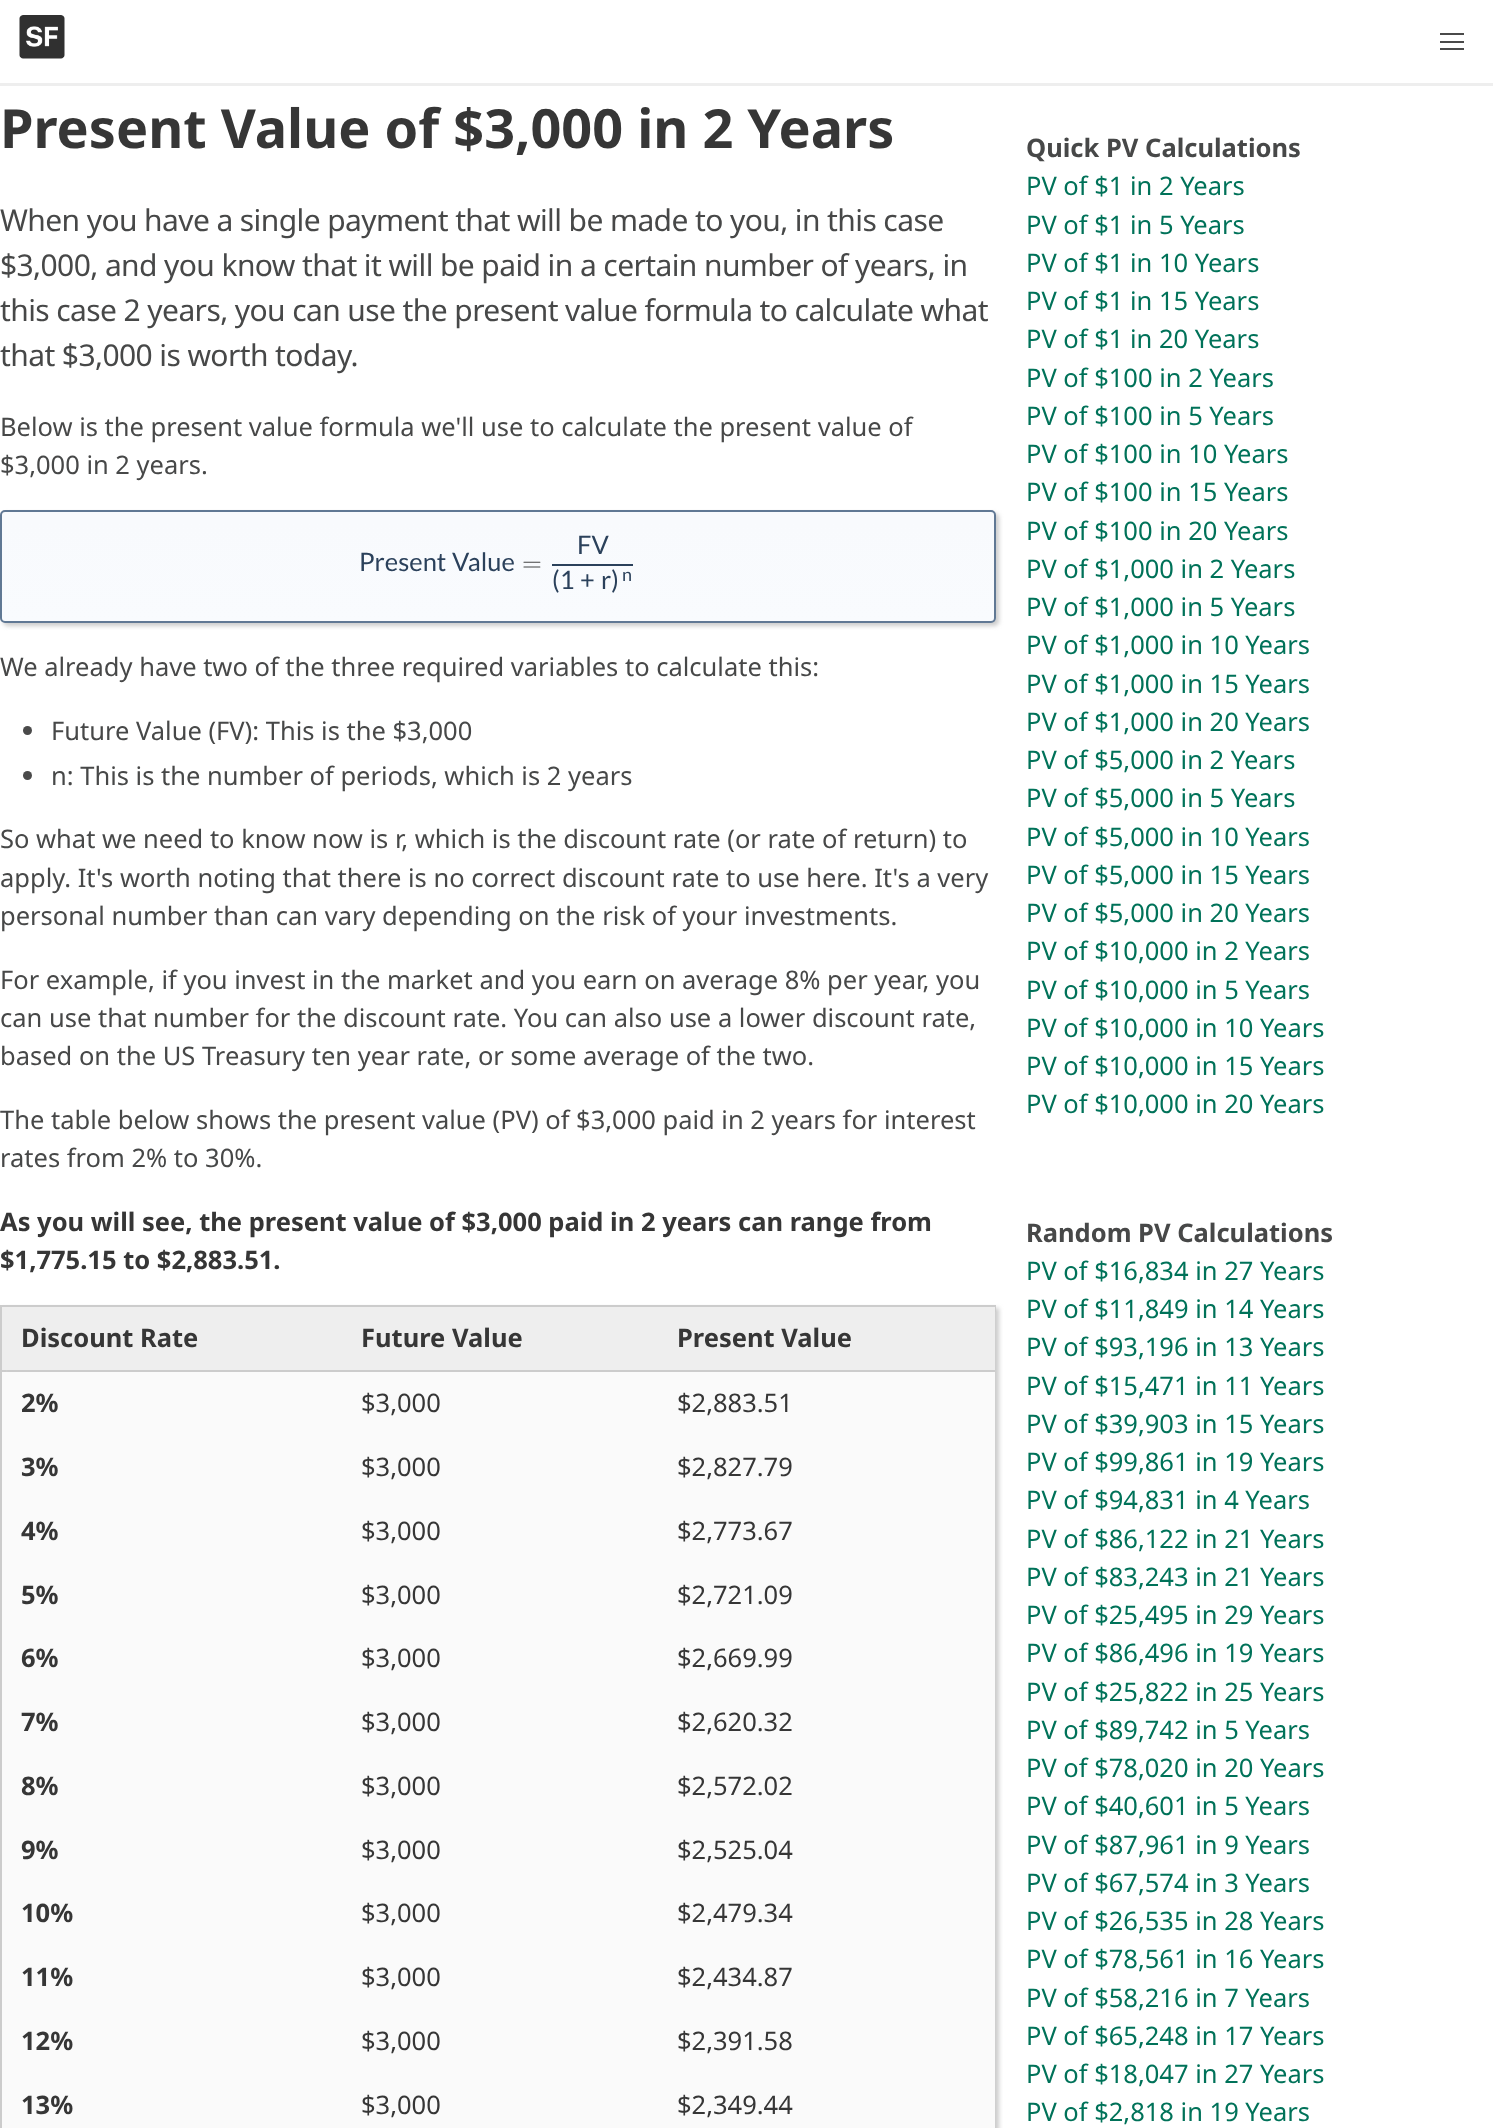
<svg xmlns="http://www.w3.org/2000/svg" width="1493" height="2128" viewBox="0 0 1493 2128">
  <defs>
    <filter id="blur1" x="-50%" y="-200%" width="200%" height="500%"><feGaussianBlur stdDeviation="2"/></filter>
    <clipPath id="clip1"><rect x="0" y="510" width="996" height="113" rx="5"/></clipPath>
    <linearGradient id="g1" gradientUnits="userSpaceOnUse" x1="498" y1="621" x2="498" y2="512"><stop offset="0" stop-color="#f9fbfe"/><stop offset="0.9" stop-color="#f8fafd"/></linearGradient>
  </defs>
  <rect width="100%" height="100%" fill="#ffffff"/>
  <rect x="0" y="83" width="1493" height="3" fill="#eeeeee"/>
  <image x="19" y="15" width="46" height="44" href="img1.png"/>
  <rect x="1440" y="33" width="24" height="2" fill="#4a4a4a"/>
  <rect x="1440" y="41" width="24" height="2" fill="#4a4a4a"/>
  <rect x="1440" y="48" width="24" height="2" fill="#4a4a4a"/>
  <text x="0" y="148" font-family="Noto Sans" font-size="54" font-weight="bold" fill="#363636">Present Value of $3,000 in 2 Years</text>
  <text x="0" y="231" font-family="Noto Sans" font-size="30" letter-spacing="-0.6" fill="#474848">When you have a single payment that will be made to you, in this case</text>
  <text x="0" y="276" font-family="Noto Sans" font-size="30" letter-spacing="-0.6" fill="#474848">$3,000, and you know that it will be paid in a certain number of years, in</text>
  <text x="0" y="321" font-family="Noto Sans" font-size="30" letter-spacing="-0.6" fill="#474848">this case 2 years, you can use the present value formula to calculate what</text>
  <text x="0" y="366" font-family="Noto Sans" font-size="30" letter-spacing="-0.6" fill="#474848">that $3,000 is worth today.</text>
  <text x="0" y="436" font-family="Noto Sans" font-size="25.5" fill="#474848">Below is the present value formula we'll use to calculate the present value of</text>
  <text x="0" y="474" font-family="Noto Sans" font-size="25.5" fill="#474848">$3,000 in 2 years.</text>
  <rect x="3" y="513" width="996" height="113" rx="5" fill="#cccccc" filter="url(#blur1)"/>
  <g clip-path="url(#clip1)">
    <rect x="0" y="512" width="996" height="109" fill="url(#g1)"/>
  </g>
  <rect x="1" y="511" width="994" height="111" rx="4" fill="none" stroke="#607894" stroke-width="2"/>
  <text x="359" y="571" font-family="Lato" font-size="25.5" fill="#2b415b">Present</text>
  <text x="452" y="571" font-family="Lato" font-size="25.5" fill="#2b415b">Value</text>
  <text x="522" y="571" font-family="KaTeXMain" font-size="25.5" fill="#474848">=</text>
  <text x="577" y="554" font-family="Lato" font-size="25.5" fill="#2b415b">FV</text>
  <rect x="552" y="564" width="81" height="2" fill="#2b415b"/>
  <text x="552" y="589" font-family="Lato" font-size="25.5" fill="#2b415b">(1</text>
  <text x="580" y="589" font-family="Lato" font-size="25.5" fill="#2b415b">+</text>
  <text x="601" y="589" font-family="Lato" font-size="25.5" fill="#2b415b">r)</text>
  <text x="622" y="581" font-family="Lato" font-size="18" fill="#2b415b">n</text>
  <text x="0" y="676" font-family="Noto Sans" font-size="25.5" fill="#474848">We already have two of the three required variables to calculate this:</text>
  <circle cx="27.5" cy="730.5" r="4.5" fill="#4a4a4a"/>
  <text x="51" y="740" font-family="Noto Sans" font-size="25.5" fill="#474848">Future Value (FV): This is the $3,000</text>
  <circle cx="27.5" cy="775.5" r="4.5" fill="#4a4a4a"/>
  <text x="51" y="785" font-family="Noto Sans" font-size="25.5" fill="#474848">n: This is the number of periods, which is 2 years</text>
  <text x="0" y="848" font-family="Noto Sans" font-size="25.5" fill="#474848">So what we need to know now is r, which is the discount rate (or rate of return) to</text>
  <text x="0" y="887" font-family="Noto Sans" font-size="25.5" fill="#474848">apply. It's worth noting that there is no correct discount rate to use here. It's a very</text>
  <text x="0" y="925" font-family="Noto Sans" font-size="25.5" fill="#474848">personal number than can vary depending on the risk of your investments.</text>
  <text x="0" y="989" font-family="Noto Sans" font-size="25.5" fill="#474848">For example, if you invest in the market and you earn on average 8% per year, you</text>
  <text x="0" y="1027" font-family="Noto Sans" font-size="25.5" fill="#474848">can use that number for the discount rate. You can also use a lower discount rate,</text>
  <text x="0" y="1065" font-family="Noto Sans" font-size="25.5" fill="#474848">based on the US Treasury ten year rate, or some average of the two.</text>
  <text x="0" y="1129" font-family="Noto Sans" font-size="25.5" fill="#474848">The table below shows the present value (PV) of $3,000 paid in 2 years for interest</text>
  <text x="0" y="1167" font-family="Noto Sans" font-size="25.5" fill="#474848">rates from 2% to 30%.</text>
  <text x="0" y="1231" font-family="Noto Sans" font-size="25.5" font-weight="bold" fill="#363636">As you will see, the present value of $3,000 paid in 2 years can range from</text>
  <text x="0" y="1269" font-family="Noto Sans" font-size="25.5" font-weight="bold" fill="#363636">$1,775.15 to $2,883.51.</text>
  <rect x="3" y="1308" width="996" height="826" fill="#cccccc" filter="url(#blur1)"/>
  <rect x="0" y="1305" width="996" height="2" fill="#cccccc"/>
  <rect x="995" y="1305" width="1" height="7" fill="#cccccc"/>
  <rect x="0" y="1305" width="2" height="823" fill="#cccccc"/>
  <rect x="0" y="1370" width="6" height="2" fill="#cccccc"/>
  <rect x="2" y="1307" width="993" height="63" fill="#eeeeee"/>
  <text x="21" y="1347" font-family="Noto Sans" font-size="25.5" font-weight="bold" fill="#363636">Discount Rate</text>
  <text x="361" y="1347" font-family="Noto Sans" font-size="25.5" font-weight="bold" fill="#363636">Future Value</text>
  <text x="677" y="1347" font-family="Noto Sans" font-size="25.5" font-weight="bold" fill="#363636">Present Value</text>
  <rect x="2" y="1372" width="993" height="756" fill="#fafafa"/>
  <text x="21" y="1412" font-family="Noto Sans" font-size="25.5" font-weight="bold" fill="#363636">2%</text>
  <text x="361" y="1412" font-family="Noto Sans" font-size="25.5" fill="#363636">$3,000</text>
  <text x="677" y="1412" font-family="Noto Sans" font-size="25.5" fill="#363636">$2,883.51</text>
  <text x="21" y="1476" font-family="Noto Sans" font-size="25.5" font-weight="bold" fill="#363636">3%</text>
  <text x="361" y="1476" font-family="Noto Sans" font-size="25.5" fill="#363636">$3,000</text>
  <text x="677" y="1476" font-family="Noto Sans" font-size="25.5" fill="#363636">$2,827.79</text>
  <text x="21" y="1540" font-family="Noto Sans" font-size="25.5" font-weight="bold" fill="#363636">4%</text>
  <text x="361" y="1540" font-family="Noto Sans" font-size="25.5" fill="#363636">$3,000</text>
  <text x="677" y="1540" font-family="Noto Sans" font-size="25.5" fill="#363636">$2,773.67</text>
  <text x="21" y="1604" font-family="Noto Sans" font-size="25.5" font-weight="bold" fill="#363636">5%</text>
  <text x="361" y="1604" font-family="Noto Sans" font-size="25.5" fill="#363636">$3,000</text>
  <text x="677" y="1604" font-family="Noto Sans" font-size="25.5" fill="#363636">$2,721.09</text>
  <text x="21" y="1667" font-family="Noto Sans" font-size="25.5" font-weight="bold" fill="#363636">6%</text>
  <text x="361" y="1667" font-family="Noto Sans" font-size="25.5" fill="#363636">$3,000</text>
  <text x="677" y="1667" font-family="Noto Sans" font-size="25.5" fill="#363636">$2,669.99</text>
  <text x="21" y="1731" font-family="Noto Sans" font-size="25.5" font-weight="bold" fill="#363636">7%</text>
  <text x="361" y="1731" font-family="Noto Sans" font-size="25.5" fill="#363636">$3,000</text>
  <text x="677" y="1731" font-family="Noto Sans" font-size="25.5" fill="#363636">$2,620.32</text>
  <text x="21" y="1795" font-family="Noto Sans" font-size="25.5" font-weight="bold" fill="#363636">8%</text>
  <text x="361" y="1795" font-family="Noto Sans" font-size="25.5" fill="#363636">$3,000</text>
  <text x="677" y="1795" font-family="Noto Sans" font-size="25.5" fill="#363636">$2,572.02</text>
  <text x="21" y="1859" font-family="Noto Sans" font-size="25.5" font-weight="bold" fill="#363636">9%</text>
  <text x="361" y="1859" font-family="Noto Sans" font-size="25.5" fill="#363636">$3,000</text>
  <text x="677" y="1859" font-family="Noto Sans" font-size="25.5" fill="#363636">$2,525.04</text>
  <text x="21" y="1922" font-family="Noto Sans" font-size="25.5" font-weight="bold" fill="#363636">10%</text>
  <text x="361" y="1922" font-family="Noto Sans" font-size="25.5" fill="#363636">$3,000</text>
  <text x="677" y="1922" font-family="Noto Sans" font-size="25.5" fill="#363636">$2,479.34</text>
  <text x="21" y="1986" font-family="Noto Sans" font-size="25.5" font-weight="bold" fill="#363636">11%</text>
  <text x="361" y="1986" font-family="Noto Sans" font-size="25.5" fill="#363636">$3,000</text>
  <text x="677" y="1986" font-family="Noto Sans" font-size="25.5" fill="#363636">$2,434.87</text>
  <text x="21" y="2050" font-family="Noto Sans" font-size="25.5" font-weight="bold" fill="#363636">12%</text>
  <text x="361" y="2050" font-family="Noto Sans" font-size="25.5" fill="#363636">$3,000</text>
  <text x="677" y="2050" font-family="Noto Sans" font-size="25.5" fill="#363636">$2,391.58</text>
  <text x="21" y="2114" font-family="Noto Sans" font-size="25.5" font-weight="bold" fill="#363636">13%</text>
  <text x="361" y="2114" font-family="Noto Sans" font-size="25.5" fill="#363636">$3,000</text>
  <text x="677" y="2114" font-family="Noto Sans" font-size="25.5" fill="#363636">$2,349.44</text>
  <text x="1026" y="157" font-family="Noto Sans" font-size="25.5" font-weight="bold" fill="#474848">Quick PV Calculations</text>
  <text x="1026" y="195" font-family="Noto Sans" font-size="25.5" fill="#007259">PV of $1 in 2 Years</text>
  <text x="1026" y="234" font-family="Noto Sans" font-size="25.5" fill="#007259">PV of $1 in 5 Years</text>
  <text x="1026" y="272" font-family="Noto Sans" font-size="25.5" fill="#007259">PV of $1 in 10 Years</text>
  <text x="1026" y="310" font-family="Noto Sans" font-size="25.5" fill="#007259">PV of $1 in 15 Years</text>
  <text x="1026" y="348" font-family="Noto Sans" font-size="25.5" fill="#007259">PV of $1 in 20 Years</text>
  <text x="1026" y="387" font-family="Noto Sans" font-size="25.5" fill="#007259">PV of $100 in 2 Years</text>
  <text x="1026" y="425" font-family="Noto Sans" font-size="25.5" fill="#007259">PV of $100 in 5 Years</text>
  <text x="1026" y="463" font-family="Noto Sans" font-size="25.5" fill="#007259">PV of $100 in 10 Years</text>
  <text x="1026" y="501" font-family="Noto Sans" font-size="25.5" fill="#007259">PV of $100 in 15 Years</text>
  <text x="1026" y="540" font-family="Noto Sans" font-size="25.5" fill="#007259">PV of $100 in 20 Years</text>
  <text x="1026" y="578" font-family="Noto Sans" font-size="25.5" fill="#007259">PV of $1,000 in 2 Years</text>
  <text x="1026" y="616" font-family="Noto Sans" font-size="25.5" fill="#007259">PV of $1,000 in 5 Years</text>
  <text x="1026" y="654" font-family="Noto Sans" font-size="25.5" fill="#007259">PV of $1,000 in 10 Years</text>
  <text x="1026" y="693" font-family="Noto Sans" font-size="25.5" fill="#007259">PV of $1,000 in 15 Years</text>
  <text x="1026" y="731" font-family="Noto Sans" font-size="25.5" fill="#007259">PV of $1,000 in 20 Years</text>
  <text x="1026" y="769" font-family="Noto Sans" font-size="25.5" fill="#007259">PV of $5,000 in 2 Years</text>
  <text x="1026" y="807" font-family="Noto Sans" font-size="25.5" fill="#007259">PV of $5,000 in 5 Years</text>
  <text x="1026" y="846" font-family="Noto Sans" font-size="25.5" fill="#007259">PV of $5,000 in 10 Years</text>
  <text x="1026" y="884" font-family="Noto Sans" font-size="25.5" fill="#007259">PV of $5,000 in 15 Years</text>
  <text x="1026" y="922" font-family="Noto Sans" font-size="25.5" fill="#007259">PV of $5,000 in 20 Years</text>
  <text x="1026" y="960" font-family="Noto Sans" font-size="25.5" fill="#007259">PV of $10,000 in 2 Years</text>
  <text x="1026" y="999" font-family="Noto Sans" font-size="25.5" fill="#007259">PV of $10,000 in 5 Years</text>
  <text x="1026" y="1037" font-family="Noto Sans" font-size="25.5" fill="#007259">PV of $10,000 in 10 Years</text>
  <text x="1026" y="1075" font-family="Noto Sans" font-size="25.5" fill="#007259">PV of $10,000 in 15 Years</text>
  <text x="1026" y="1113" font-family="Noto Sans" font-size="25.5" fill="#007259">PV of $10,000 in 20 Years</text>
  <text x="1026" y="1242" font-family="Noto Sans" font-size="25.5" font-weight="bold" fill="#474848">Random PV Calculations</text>
  <text x="1026" y="1280" font-family="Noto Sans" font-size="25.5" fill="#007259">PV of $16,834 in 27 Years</text>
  <text x="1026" y="1318" font-family="Noto Sans" font-size="25.5" fill="#007259">PV of $11,849 in 14 Years</text>
  <text x="1026" y="1356" font-family="Noto Sans" font-size="25.5" fill="#007259">PV of $93,196 in 13 Years</text>
  <text x="1026" y="1395" font-family="Noto Sans" font-size="25.5" fill="#007259">PV of $15,471 in 11 Years</text>
  <text x="1026" y="1433" font-family="Noto Sans" font-size="25.5" fill="#007259">PV of $39,903 in 15 Years</text>
  <text x="1026" y="1471" font-family="Noto Sans" font-size="25.5" fill="#007259">PV of $99,861 in 19 Years</text>
  <text x="1026" y="1509" font-family="Noto Sans" font-size="25.5" fill="#007259">PV of $94,831 in 4 Years</text>
  <text x="1026" y="1548" font-family="Noto Sans" font-size="25.5" fill="#007259">PV of $86,122 in 21 Years</text>
  <text x="1026" y="1586" font-family="Noto Sans" font-size="25.5" fill="#007259">PV of $83,243 in 21 Years</text>
  <text x="1026" y="1624" font-family="Noto Sans" font-size="25.5" fill="#007259">PV of $25,495 in 29 Years</text>
  <text x="1026" y="1662" font-family="Noto Sans" font-size="25.5" fill="#007259">PV of $86,496 in 19 Years</text>
  <text x="1026" y="1701" font-family="Noto Sans" font-size="25.5" fill="#007259">PV of $25,822 in 25 Years</text>
  <text x="1026" y="1739" font-family="Noto Sans" font-size="25.5" fill="#007259">PV of $89,742 in 5 Years</text>
  <text x="1026" y="1777" font-family="Noto Sans" font-size="25.5" fill="#007259">PV of $78,020 in 20 Years</text>
  <text x="1026" y="1815" font-family="Noto Sans" font-size="25.5" fill="#007259">PV of $40,601 in 5 Years</text>
  <text x="1026" y="1854" font-family="Noto Sans" font-size="25.5" fill="#007259">PV of $87,961 in 9 Years</text>
  <text x="1026" y="1892" font-family="Noto Sans" font-size="25.5" fill="#007259">PV of $67,574 in 3 Years</text>
  <text x="1026" y="1930" font-family="Noto Sans" font-size="25.5" fill="#007259">PV of $26,535 in 28 Years</text>
  <text x="1026" y="1968" font-family="Noto Sans" font-size="25.5" fill="#007259">PV of $78,561 in 16 Years</text>
  <text x="1026" y="2007" font-family="Noto Sans" font-size="25.5" fill="#007259">PV of $58,216 in 7 Years</text>
  <text x="1026" y="2045" font-family="Noto Sans" font-size="25.5" fill="#007259">PV of $65,248 in 17 Years</text>
  <text x="1026" y="2083" font-family="Noto Sans" font-size="25.5" fill="#007259">PV of $18,047 in 27 Years</text>
  <text x="1026" y="2121" font-family="Noto Sans" font-size="25.5" fill="#007259">PV of $2,818 in 19 Years</text>
</svg>
